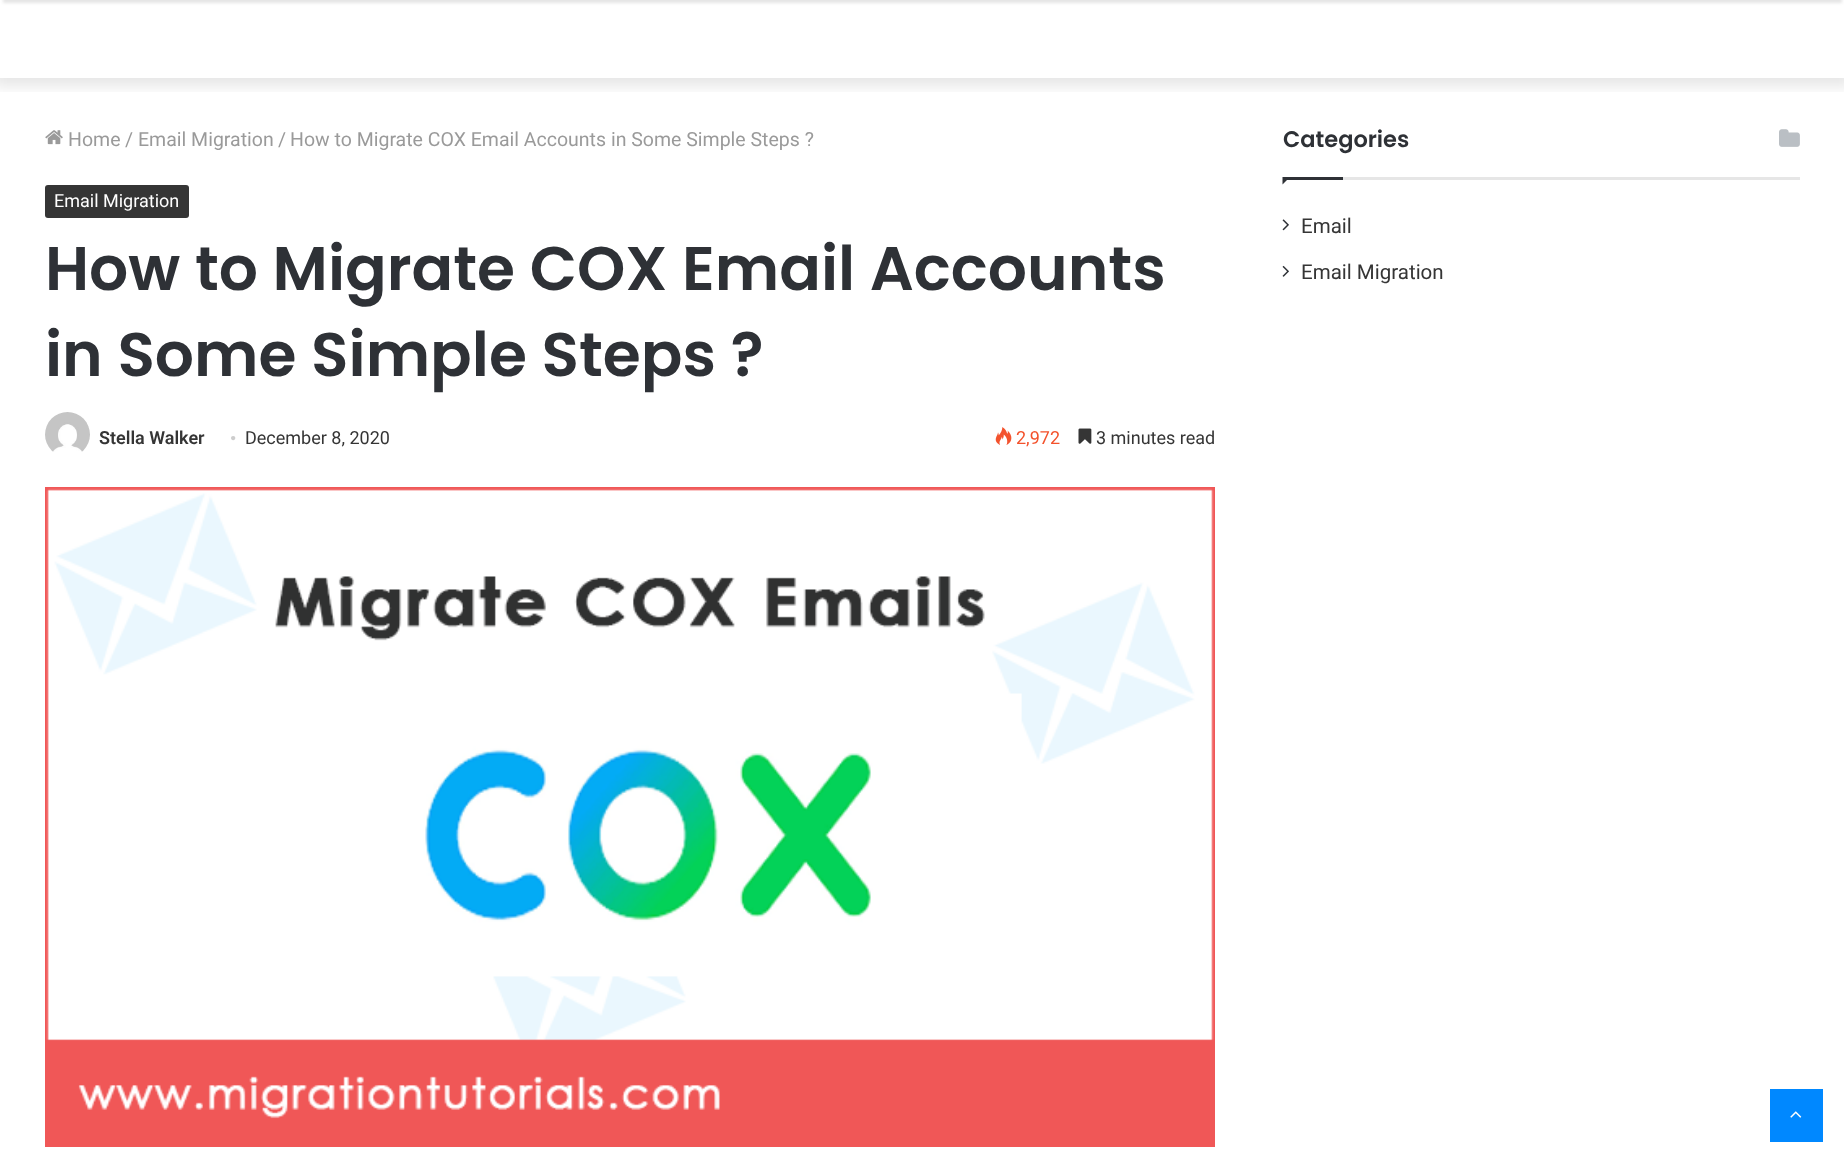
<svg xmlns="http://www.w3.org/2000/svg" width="1844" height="1163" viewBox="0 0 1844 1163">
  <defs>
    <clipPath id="clip1"><rect x="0" y="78" width="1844" height="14"/></clipPath>
    <filter id="blur1" x="-50%" y="-200%" width="200%" height="500%"><feGaussianBlur stdDeviation="7.5"/></filter>
    <filter id="blur2" x="-50%" y="-200%" width="200%" height="500%"><feGaussianBlur stdDeviation="1.5"/></filter>
  </defs>
  <rect width="100%" height="100%" fill="#ffffff"/>
  <g clip-path="url(#clip1)">
    <rect x="-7" y="-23" width="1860" height="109" fill="#000000" fill-opacity="0.1" filter="url(#blur1)"/>
  </g>
  <rect x="3" y="-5" width="1839" height="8" fill="#000000" fill-opacity="0.1" filter="url(#blur2)"/>
  <image x="45" y="130" width="18" height="15" href="img1.png"/>
  <text x="68" y="146" font-family="Roboto" font-size="19.5" fill="#9a9a9a">Home</text>
  <text x="125" y="146" font-family="Roboto" font-size="19.5" fill="#9a9a9a">/</text>
  <text x="138" y="146" font-family="Roboto" font-size="19.5" fill="#9a9a9a">Email Migration</text>
  <text x="278" y="146" font-family="Roboto" font-size="19.5" fill="#9a9a9a">/</text>
  <text x="290" y="146" font-family="Roboto" font-size="19.5" fill="#9a9a9a">How to Migrate COX Email Accounts in Some Simple Steps ?</text>
  <rect x="45" y="185" width="144" height="33" rx="3" fill="#353535"/>
  <text x="54" y="207" font-family="Roboto" font-size="18" fill="#ffffff">Email Migration</text>
  <text x="45" y="290" font-family="Poppins" font-size="61.5" font-weight="600" fill="#2e3136">How to Migrate COX Email Accounts</text>
  <text x="45" y="376" font-family="Poppins" font-size="61.5" font-weight="600" fill="#2e3136">in Some Simple Steps ?</text>
  <image x="45" y="412" width="45" height="40" href="img2.png"/>
  <text x="99" y="444" font-family="Roboto" font-size="18" font-weight="600" fill="#353535">Stella Walker</text>
  <text x="230" y="444" font-family="Liberation Serif" font-size="18" fill="#cdcdcd">•</text>
  <text x="245" y="444" font-family="Roboto" font-size="18" fill="#353535">December 8, 2020</text>
  <image x="995" y="427" width="17" height="18" href="img3.png"/>
  <text x="1016" y="444" font-family="Roboto" font-size="18" fill="#f3522c">2,972</text>
  <image x="1078" y="428" width="14" height="16" href="img4.png"/>
  <text x="1096" y="444" font-family="Roboto" font-size="18" fill="#353535">3 minutes read</text>
  <image x="45" y="487" width="1170" height="660" href="img5.png"/>
  <rect x="1343" y="177" width="457" height="3" fill="#e6e6e6"/>
  <text x="1283" y="147" font-family="Poppins" font-size="22.5" font-weight="600" fill="#2e3136">Categories</text>
  <image x="1779" y="129" width="21" height="18" href="img6.png"/>
  <path d="M1282.5 177H1290L1282.5 184.5Z" fill="#2e3136"/>
  <rect x="1283" y="177" width="60" height="3" fill="#2e3136"/>
  <image x="1282" y="219" width="7" height="12" href="img7.png"/>
  <text x="1301" y="233" font-family="Roboto" font-size="20.5" fill="#353535">Email</text>
  <image x="1282" y="265" width="7" height="12" href="img8.png"/>
  <text x="1301" y="279" font-family="Roboto" font-size="20.5" fill="#353535">Email Migration</text>
  <rect x="1770" y="1089" width="53" height="53" fill="#0088ff"/>
  <image x="1790" y="1111" width="12" height="7" href="img9.png"/>
</svg>
